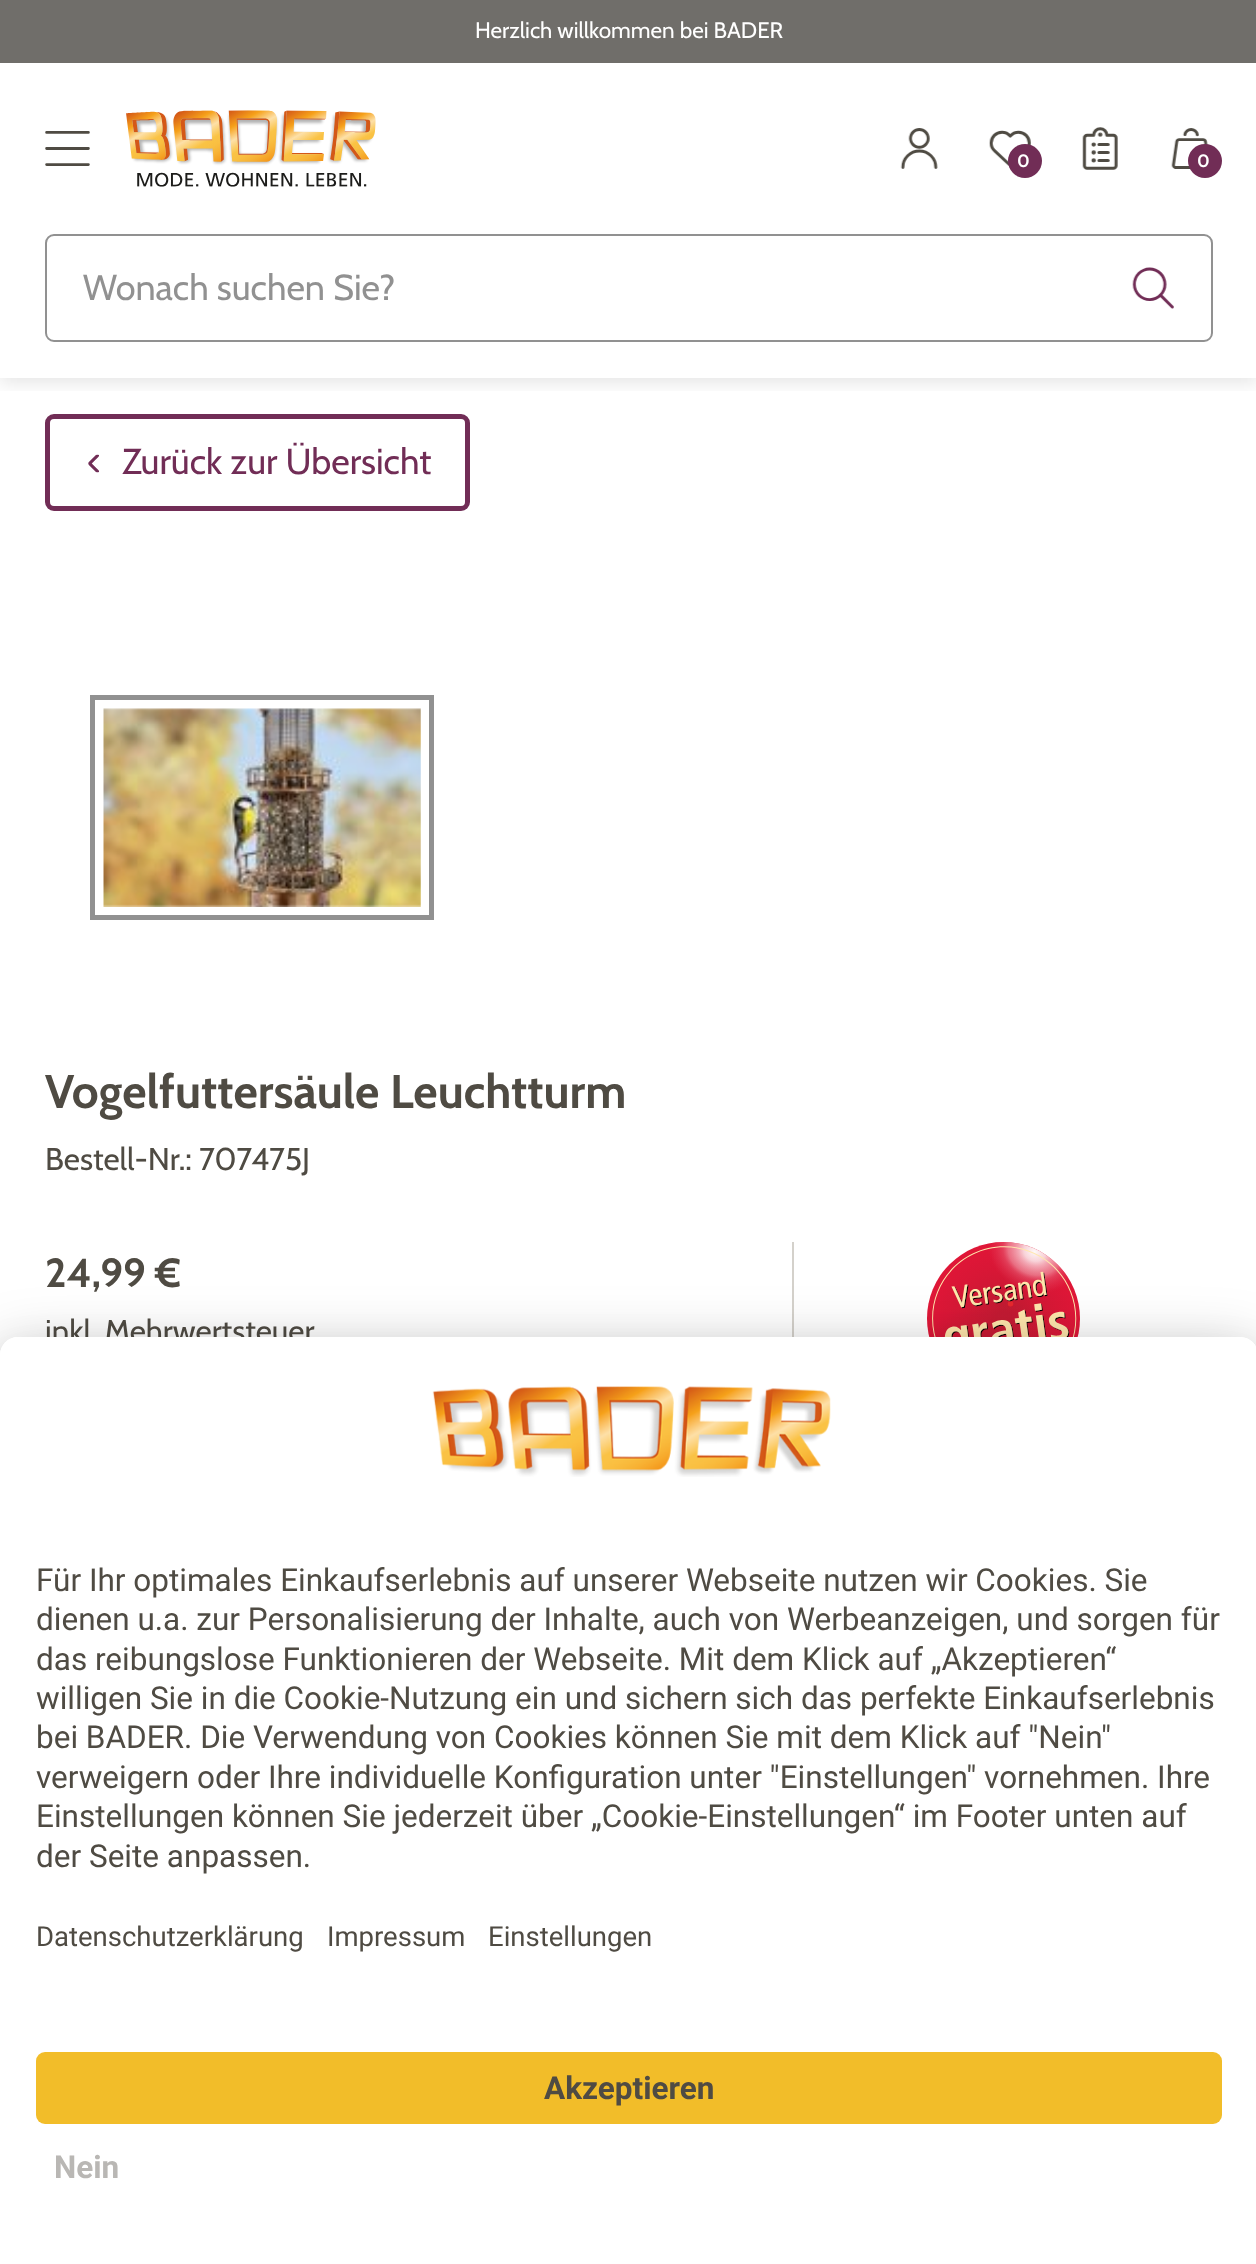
<svg xmlns="http://www.w3.org/2000/svg" width="1256" height="2264" viewBox="0 0 1256 2264">
  <defs>
    <clipPath id="clip1"><rect x="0" y="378" width="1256" height="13"/></clipPath>
    <filter id="blur1" x="-50%" y="-200%" width="200%" height="500%"><feGaussianBlur stdDeviation="9"/></filter>
    <filter id="blur2" x="-50%" y="-200%" width="200%" height="500%"><feGaussianBlur stdDeviation="31.5"/></filter>
    <filter id="blur3" x="-50%" y="-200%" width="200%" height="500%"><feGaussianBlur stdDeviation="29"/></filter>
  </defs>
  <rect width="100%" height="100%" fill="#ffffff"/>
  <g clip-path="url(#clip1)">
    <rect x="0" y="5" width="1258" height="378" fill="#000000" fill-opacity="0.1" filter="url(#blur1)"/>
  </g>
  <rect x="0" y="0" width="1256" height="63" fill="#706e6a"/>
  <text x="475" y="38" font-family="Cabin" font-size="22.5" fill="#ffffff">Herzlich willkommen bei BADER</text>
  <image x="45" y="131" width="45" height="35" href="img1.png"/>
  <image x="126" y="110" width="250" height="77" href="img2.png"/>
  <image x="900" y="128" width="38" height="41" href="img3.png"/>
  <image x="989" y="130" width="42" height="37" href="img4.png"/>
  <circle cx="1025" cy="161" r="17" fill="#712d56"/>
  <text x="1017" y="167" font-family="Cabin" font-size="18" font-weight="bold" fill="#ffffff">0</text>
  <image x="1082" y="127" width="36" height="43" href="img5.png"/>
  <image x="1171" y="128" width="37" height="41" href="img6.png"/>
  <circle cx="1205" cy="161" r="17" fill="#712d56"/>
  <text x="1197" y="167" font-family="Cabin" font-size="18" font-weight="bold" fill="#ffffff">0</text>
  <rect x="46" y="235" width="1166" height="106" rx="8" fill="none" stroke="#919191" stroke-width="2"/>
  <text x="83" y="300" font-family="Cabin" font-size="36" fill="#919191">Wonach suchen Sie?</text>
  <image x="1132" y="267" width="42" height="42" href="img7.png"/>
  <rect x="47.5" y="416.5" width="420" height="92" rx="6.5" fill="none" stroke="#712d56" stroke-width="5"/>
  <image x="88" y="454" width="11" height="19" href="img8.png"/>
  <text x="122" y="474" font-family="Cabin" font-size="36" fill="#712d56">Zurück zur Übersicht</text>
  <rect x="92.5" y="697.5" width="339" height="220" fill="none" stroke="#919191" stroke-width="5"/>
  <image x="103" y="708" width="318" height="199" href="img9.png"/>
  <text x="45" y="1108" font-family="Cabin" font-size="47.25" font-weight="bold" fill="#4f4b43">Vogelfuttersäule Leuchtturm</text>
  <text x="45" y="1170" font-family="Cabin" font-size="31.5" fill="#4f4b43">Bestell-Nr.: 707475J</text>
  <text x="45" y="1287" font-family="Cabin" font-size="40.5" font-weight="bold" fill="#4f4b43">24,99 €</text>
  <text x="45" y="1342" font-family="Cabin" font-size="31.5" fill="#4f4b43">inkl. Mehrwertsteuer</text>
  <rect x="792" y="1242" width="2" height="95" fill="#d4d1cb"/>
  <image x="927" y="1242" width="153" height="95" href="img10.png"/>
  <rect x="0" y="1382" width="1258" height="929" rx="18" fill="#000000" fill-opacity="0.3" filter="url(#blur2)"/>
  <rect x="0" y="1348" width="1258" height="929" rx="18" fill="#000000" fill-opacity="0.22" filter="url(#blur3)"/>
  <path d="M18 1337H1240C1250 1337 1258 1345 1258 1355V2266H0V1355C0 1345 8 1337 18 1337Z" fill="#ffffff"/>
  <path d="M18 1337H1240C1250 1337 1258 1345 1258 1355V2025H0V1355C0 1345 8 1337 18 1337Z" fill="#ffffff"/>
  <image x="432" y="1386" width="399" height="91" href="img11.png"/>
  <text x="36" y="1591" font-family="Roboto" font-size="31.5" fill="#4f4b43">Für Ihr optimales Einkaufserlebnis auf unserer Webseite nutzen wir Cookies. Sie</text>
  <text x="36" y="1630" font-family="Roboto" font-size="31.5" fill="#4f4b43">dienen u.a. zur Personalisierung der Inhalte, auch von Werbeanzeigen, und sorgen für</text>
  <text x="36" y="1670" font-family="Roboto" font-size="31.5" fill="#4f4b43">das reibungslose Funktionieren der Webseite. Mit dem Klick auf „Akzeptieren“</text>
  <text x="36" y="1709" font-family="Roboto" font-size="31.5" fill="#4f4b43">willigen Sie in die Cookie-Nutzung ein und sichern sich das perfekte Einkaufserlebnis</text>
  <text x="36" y="1748" font-family="Roboto" font-size="31.5" fill="#4f4b43">bei BADER. Die Verwendung von Cookies können Sie mit dem Klick auf "Nein"</text>
  <text x="36" y="1788" font-family="Roboto" font-size="31.5" fill="#4f4b43">verweigern oder Ihre individuelle Konfiguration unter "Einstellungen" vornehmen. Ihre</text>
  <text x="36" y="1827" font-family="Roboto" font-size="31.5" fill="#4f4b43">Einstellungen können Sie jederzeit über „Cookie-Einstellungen“ im Footer unten auf</text>
  <text x="36" y="1867" font-family="Roboto" font-size="31.5" fill="#4f4b43">der Seite anpassen.</text>
  <text x="36" y="1946" font-family="Roboto" font-size="27.5" fill="#4f4b43">Datenschutzerklärung</text>
  <text x="327" y="1946" font-family="Roboto" font-size="27.5" fill="#4f4b43">Impressum</text>
  <text x="488" y="1946" font-family="Roboto" font-size="27.5" fill="#4f4b43">Einstellungen</text>
  <rect x="36" y="2052" width="1186" height="72" rx="9" fill="#f2bd29"/>
  <text x="544" y="2099" font-family="Roboto" font-size="31.5" font-weight="bold" fill="#4f4b43">Akzeptieren</text>
  <text x="54" y="2178" font-family="Roboto" font-size="31.5" font-weight="bold" fill="#b9b7b4">Nein</text>
</svg>
